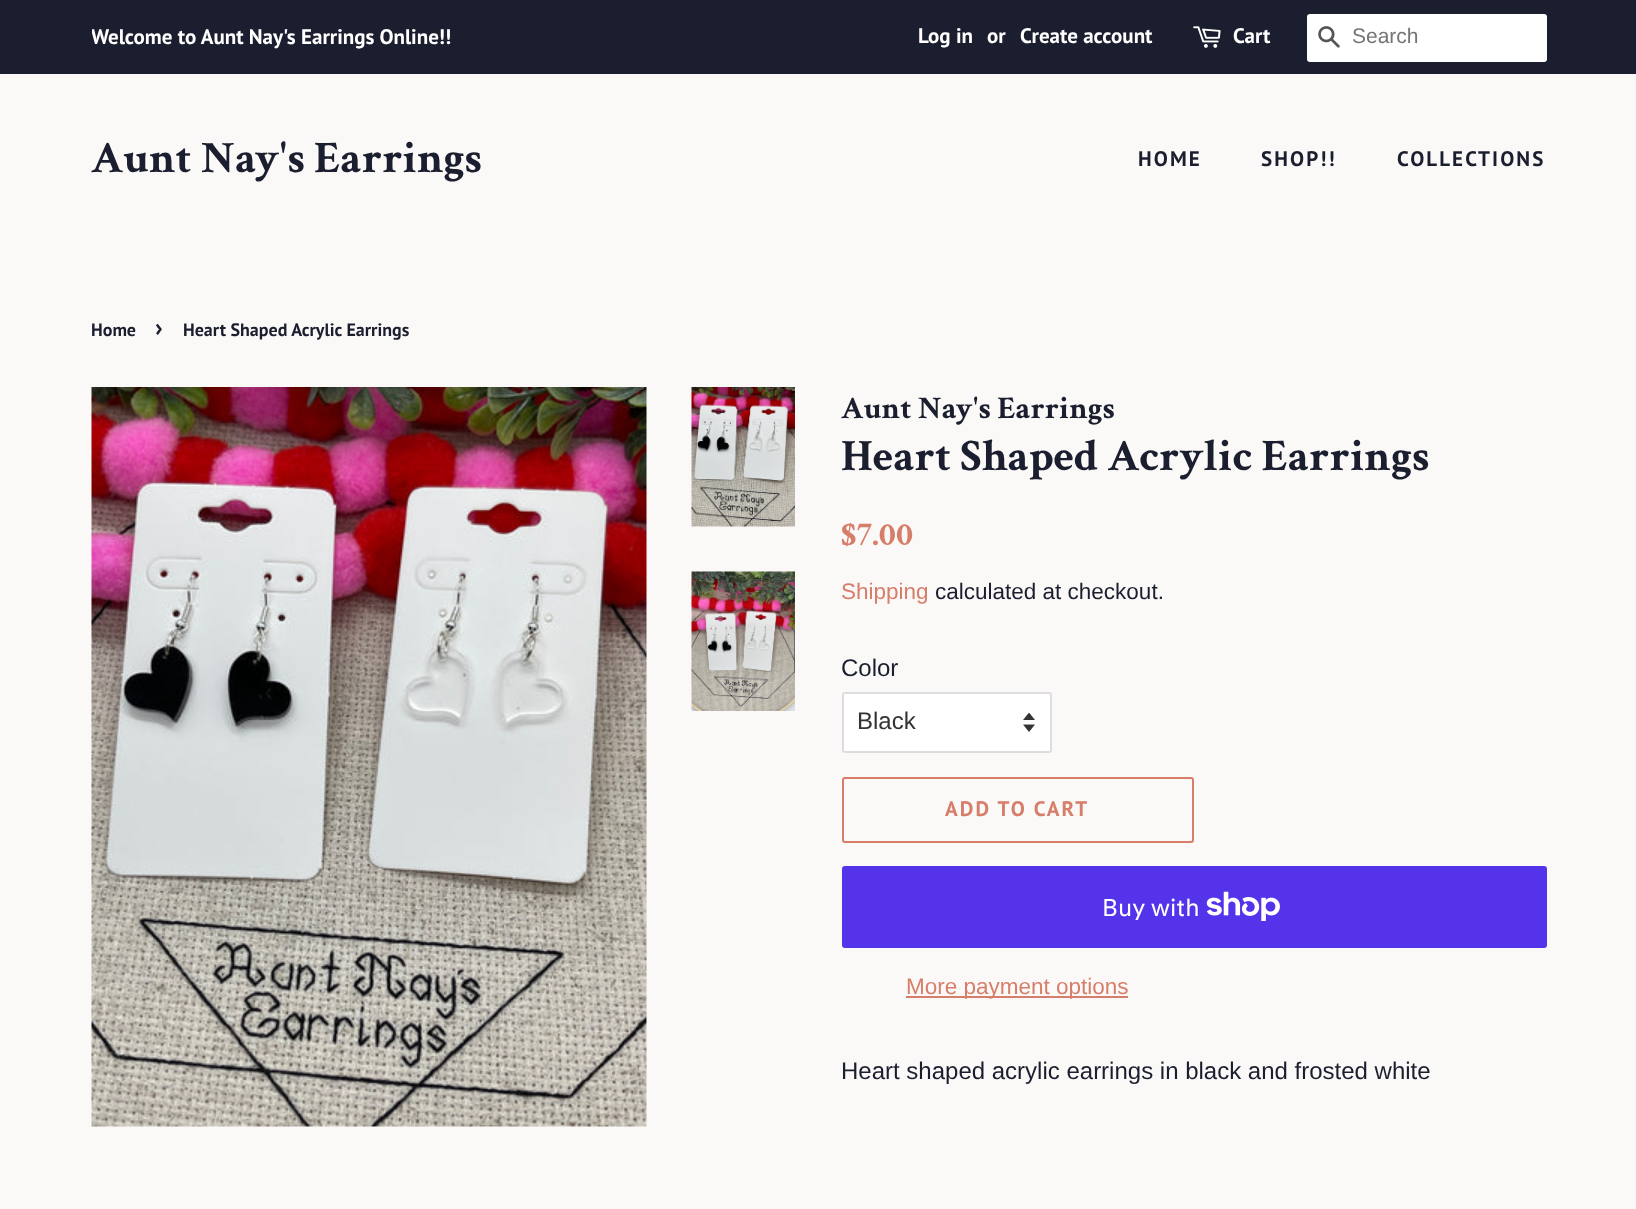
<svg xmlns="http://www.w3.org/2000/svg" width="1636" height="1209" viewBox="0 0 1636 1209">
  <defs>
    <clipPath id="clip1"><rect x="92" y="20" width="360" height="36"/></clipPath>
  </defs>
  <rect width="100%" height="100%" fill="#faf9f7"/>
  <rect x="0" y="0" width="1636" height="74" fill="#1b1e2f"/>
  <g clip-path="url(#clip1)">
    <text x="91" y="44" font-family="PT Sans" font-size="21" font-weight="bold" fill="#ffffff">Welcome to Aunt Nay's Earrings Online!!</text>
  </g>
  <text x="918" y="43" font-family="PT Sans" font-size="21" font-weight="bold" fill="#ffffff">Log in</text>
  <text x="987" y="43" font-family="PT Sans" font-size="21" font-weight="bold" fill="#ffffff">or</text>
  <text x="1020" y="43" font-family="PT Sans" font-size="21" font-weight="bold" fill="#ffffff">Create account</text>
  <image x="1193" y="26" width="28" height="22" href="img1.png"/>
  <text x="1233" y="43" font-family="PT Sans" font-size="21" font-weight="bold" fill="#ffffff">Cart</text>
  <rect x="1307" y="14" width="240" height="48" rx="3" fill="#ffffff"/>
  <image x="1318" y="26" width="22" height="22" href="img2.png"/>
  <text x="1352" y="43" font-family="Liberation Sans" font-size="21" fill="#757575">Search</text>
  <text x="91" y="172" font-family="Crimson Text" font-size="45" font-weight="bold" fill="#1b1e2f">Aunt Nay's Earrings</text>
  <text x="1138" y="166" font-family="PT Sans" font-size="21" font-weight="bold" letter-spacing="2.1" fill="#1b1e2f">HOME</text>
  <text x="1261" y="166" font-family="PT Sans" font-size="21" font-weight="bold" letter-spacing="2.1" fill="#1b1e2f">SHOP!!</text>
  <text x="1397" y="166" font-family="PT Sans" font-size="21" font-weight="bold" letter-spacing="2.1" fill="#1b1e2f">COLLECTIONS</text>
  <text x="91" y="336" font-family="PT Sans" font-size="18" font-weight="bold" fill="#1b1e2f">Home</text>
  <text x="155" y="336" font-family="PT Sans" font-size="25" font-weight="bold" fill="#1b1e2f">›</text>
  <text x="183" y="336" font-family="PT Sans" font-size="18" font-weight="bold" fill="#1b1e2f">Heart Shaped Acrylic Earrings</text>
  <image x="91" y="387" width="556" height="740" href="img3.png"/>
  <image x="691" y="387" width="104" height="140" href="img4.png"/>
  <image x="691" y="571" width="104" height="140" href="img5.png"/>
  <text x="841" y="418" font-family="Crimson Text" font-size="31.5" font-weight="bold" fill="#1b1e2f">Aunt Nay's Earrings</text>
  <text x="841" y="470" font-family="Crimson Text" font-size="45" font-weight="bold" fill="#1b1e2f">Heart Shaped Acrylic Earrings</text>
  <text x="841" y="545" font-family="Crimson Text" font-size="34" font-weight="bold" fill="#d77e6a">$7.00</text>
  <text x="841" y="599" font-family="Liberation Sans" font-size="22.5" fill="#d77e6a">Shipping</text>
  <text x="935" y="599" font-family="Liberation Sans" font-size="22.5" fill="#1b1e2f">calculated at checkout.</text>
  <text x="841" y="676" font-family="Liberation Sans" font-size="24" fill="#1b1e2f">Color</text>
  <rect x="842" y="692" width="210" height="61" rx="3" fill="#ffffff"/>
  <image x="1023" y="713" width="12" height="19" href="img6.png"/>
  <rect x="843" y="693" width="208" height="59" rx="2" fill="none" stroke="#1b1e2f" stroke-opacity="0.15" stroke-width="2"/>
  <text x="857" y="729" font-family="Liberation Sans" font-size="24" fill="#333333">Black</text>
  <rect x="843" y="778" width="350" height="64" rx="2" fill="none" stroke="#d77e6a" stroke-width="2"/>
  <text x="945" y="816" font-family="PT Sans" font-size="21" font-weight="bold" letter-spacing="2.1" fill="#d77e6a">ADD TO CART</text>
  <rect x="842" y="866" width="705" height="82" rx="3" fill="#5433eb"/>
  <text x="1102" y="916" font-family="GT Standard" font-size="24" fill="#ffffff">Buy with</text>
  <image x="1206" y="891" width="74" height="30" href="img7.png"/>
  <rect x="906" y="996" width="222" height="2" fill="#d77e6a"/>
  <text x="906" y="994" font-family="Liberation Sans" font-size="22.5" fill="#d77e6a">More payment options</text>
  <text x="841" y="1079" font-family="Liberation Sans" font-size="24" fill="#1b1e2f">Heart shaped acrylic earrings in black and frosted white</text>
</svg>
